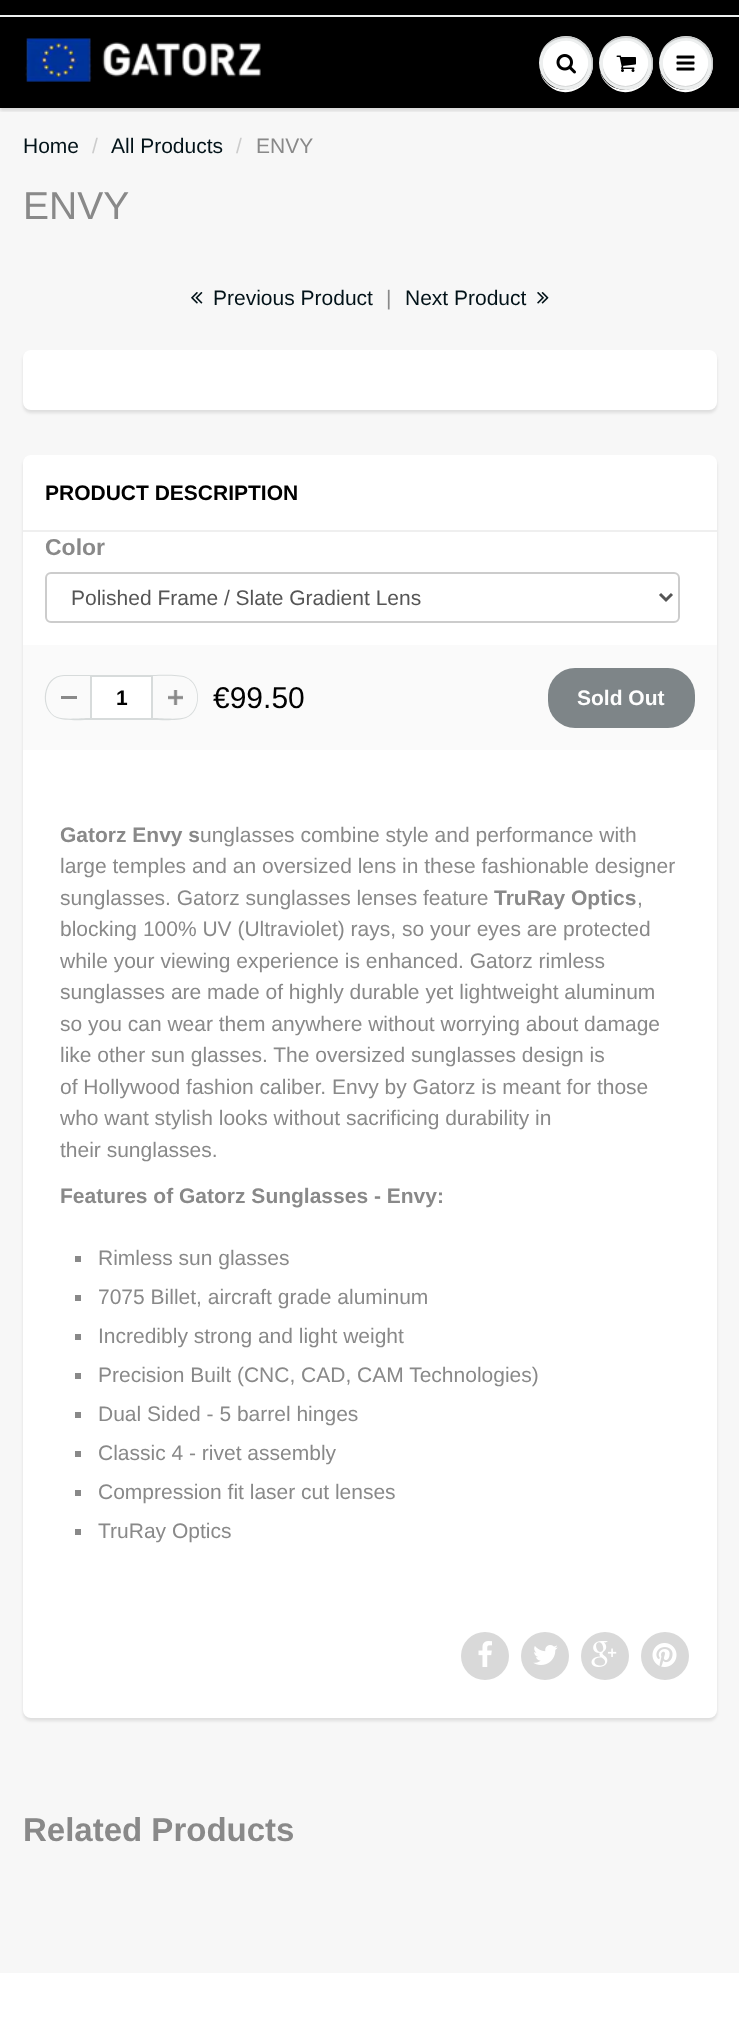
<svg xmlns="http://www.w3.org/2000/svg" width="739" height="2032" viewBox="0 0 739 2032">
  <defs>
    <clipPath id="clip1"><rect x="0" y="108" width="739" height="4"/></clipPath>
    <filter id="blur1" x="-50%" y="-200%" width="200%" height="500%"><feGaussianBlur stdDeviation="1.5"/></filter>
  </defs>
  <rect width="100%" height="100%" fill="#ffffff"/>
  <rect x="0" y="0" width="739" height="108" fill="#000000"/>
  <rect x="0" y="108" width="739" height="1865" fill="#f7f7f7"/>
  <g clip-path="url(#clip1)">
    <rect x="0" y="18" width="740" height="93" fill="#0b191c" fill-opacity="0.12" filter="url(#blur1)"/>
  </g>
  <rect x="0" y="15" width="739" height="2" fill="#ecefef"/>
  <image x="25" y="38" width="236" height="44" href="img1.png"/>
  <path d="M540 71C541 77 544 82 549 86C569 103 599 82 592 57C599 91 549 103 540 71Z" fill="#ffffff"/>
  <circle cx="566" cy="63" r="27" fill="#edefef"/>
  <path d="M566 38C587 38 598 62 588 79C604 57 580 27 554 39C549 41 544 46 541 52C546 44 556 38 566 38Z" fill="#c9cbcb"/>
  <path d="M543 64C542 94 589 94 588 64C587 92 544 92 543 64Z" fill="#c9cbcb"/>
  <circle cx="565.5" cy="63.5" r="22.5" fill="#ffffff"/>
  <path d="M566 42C582 42 589 56 587 69C589 63 588 56 584 51C569 28 535 48 545 72C541 59 548 42 566 42Z" fill="#ffffff"/>
  <image x="556" y="54" width="20" height="20" href="img2.png"/>
  <path d="M600 71C601 77 604 82 609 86C629 103 659 82 652 57C659 91 609 103 600 71Z" fill="#ffffff"/>
  <circle cx="626" cy="63" r="27" fill="#edefef"/>
  <path d="M626 38C647 38 658 62 648 79C664 57 640 27 614 39C609 41 604 46 601 52C606 44 616 38 626 38Z" fill="#c9cbcb"/>
  <path d="M603 64C602 94 649 94 648 64C647 92 604 92 603 64Z" fill="#c9cbcb"/>
  <circle cx="625.5" cy="63.5" r="22.5" fill="#ffffff"/>
  <path d="M626 42C642 42 649 56 647 69C649 63 648 56 644 51C629 28 595 48 605 72C601 59 608 42 626 42Z" fill="#ffffff"/>
  <image x="616" y="55" width="20" height="17" href="img3.png"/>
  <path d="M660 71C661 77 664 82 669 86C689 103 719 82 712 57C719 91 669 103 660 71Z" fill="#ffffff"/>
  <circle cx="686" cy="63" r="27" fill="#edefef"/>
  <path d="M686 38C707 38 718 62 708 79C724 57 700 27 674 39C669 41 664 46 661 52C666 44 676 38 686 38Z" fill="#c9cbcb"/>
  <path d="M663 64C662 94 709 94 708 64C707 92 664 92 663 64Z" fill="#c9cbcb"/>
  <circle cx="685.5" cy="63.5" r="22.5" fill="#ffffff"/>
  <path d="M686 42C702 42 709 56 707 69C709 63 708 56 704 51C689 28 655 48 665 72C661 59 668 42 686 42Z" fill="#ffffff"/>
  <image x="676" y="55" width="19" height="16" href="img4.png"/>
  <text x="23" y="153" font-family="Liberation Sans" font-size="21" fill="#021218">Home</text>
  <text x="92" y="153" font-family="Liberation Sans" font-size="21" fill="#cccccc">/</text>
  <text x="111" y="153" font-family="Liberation Sans" font-size="21" fill="#021218">All Products</text>
  <text x="236" y="153" font-family="Liberation Sans" font-size="21" fill="#cccccc">/</text>
  <text x="256" y="153" font-family="Liberation Sans" font-size="21" fill="#898989">ENVY</text>
  <text x="23" y="219" font-family="Liberation Sans" font-size="39" fill="#898989">ENVY</text>
  <image x="191" y="292" width="12" height="12" href="img5.png"/>
  <text x="213" y="305" font-family="Liberation Sans" font-size="21" fill="#021218">Previous Product</text>
  <text x="386" y="305" font-family="Liberation Sans" font-size="21" fill="#898989">|</text>
  <text x="405" y="305" font-family="Liberation Sans" font-size="21" fill="#021218">Next Product</text>
  <image x="537" y="292" width="12" height="12" href="img6.png"/>
  <rect x="23" y="353" width="694" height="60" rx="8" fill="#0b191c" fill-opacity="0.1" filter="url(#blur1)"/>
  <rect x="23" y="350" width="694" height="60" rx="8" fill="#ffffff"/>
  <rect x="23" y="458" width="694" height="1263" rx="8" fill="#0b191c" fill-opacity="0.1" filter="url(#blur1)"/>
  <rect x="23" y="455" width="694" height="1263" rx="8" fill="#ffffff"/>
  <rect x="23" y="530" width="694" height="2" fill="#efefef"/>
  <text x="45" y="500" font-family="Liberation Sans" font-size="21" font-weight="bold" fill="#000000">PRODUCT DESCRIPTION</text>
  <text x="45" y="555" font-family="Liberation Sans" font-size="23" font-weight="bold" fill="#898989">Color</text>
  <rect x="46" y="573" width="633" height="49" rx="5" fill="none" stroke="#cccccc" stroke-width="2"/>
  <path d="M660 594L666 600L672 594" fill="none" stroke="#555555" stroke-width="3"/>
  <text x="71" y="605" font-family="Liberation Sans" font-size="21" fill="#555555">Polished Frame / Slate Gradient Lens</text>
  <rect x="23" y="645" width="694" height="105" fill="#fafafa"/>
  <rect x="61" y="696" width="16" height="3" fill="#898989"/>
  <path d="M64 675H90V720C82 720 64 721 57 718C38 710 42 675 64 675ZM64 676H90V718C82 718 64 720 57 717C40 710 43 676 64 676Z" fill="#d7dbdb" fill-rule="evenodd"/>
  <rect x="91" y="676" width="61" height="43" fill="#ffffff" stroke="#d7dbdb" stroke-width="2"/>
  <text x="116" y="705" font-family="Liberation Sans" font-size="21" font-weight="bold" fill="#000000">1</text>
  <image x="168" y="690" width="15" height="15" href="img7.png"/>
  <path d="M153 675C161 675 179 674 186 677C202 683 202 712 186 718C179 721 161 720 153 720ZM153 676C161 676 179 675 186 678C201 684 201 711 186 717C179 720 161 718 153 718Z" fill="#d7dbdb" fill-rule="evenodd"/>
  <text x="213" y="708" font-family="Liberation Sans" font-size="30" fill="#000000">€99.50</text>
  <rect x="548" y="668" width="147" height="60" rx="27" fill="#7e8588"/>
  <text x="577" y="705" font-family="Liberation Sans" font-size="21" font-weight="bold" fill="#fdfdfd">Sold Out</text>
  <text x="60" y="842" font-family="Liberation Sans" font-size="21" font-weight="bold" fill="#898989">Gatorz Envy s</text>
  <text x="200" y="842" font-family="Liberation Sans" font-size="21" fill="#898989">unglasses combine style and performance with</text>
  <text x="60" y="873" font-family="Liberation Sans" font-size="21" fill="#898989">large temples and an oversized lens in these fashionable designer</text>
  <text x="60" y="905" font-family="Liberation Sans" font-size="21" fill="#898989">sunglasses. Gatorz sunglasses lenses feature</text>
  <text x="494" y="905" font-family="Liberation Sans" font-size="21" font-weight="bold" fill="#898989">TruRay Optics</text>
  <text x="637" y="905" font-family="Liberation Sans" font-size="21" fill="#898989">,</text>
  <text x="60" y="936" font-family="Liberation Sans" font-size="21" fill="#898989">blocking 100% UV (Ultraviolet) rays, so your eyes are protected</text>
  <text x="60" y="968" font-family="Liberation Sans" font-size="21" fill="#898989">while your viewing experience is enhanced. Gatorz rimless</text>
  <text x="60" y="999" font-family="Liberation Sans" font-size="21" fill="#898989">sunglasses are made of highly durable yet lightweight aluminum</text>
  <text x="60" y="1031" font-family="Liberation Sans" font-size="21" fill="#898989">so you can wear them anywhere without worrying about damage</text>
  <text x="60" y="1062" font-family="Liberation Sans" font-size="21" fill="#898989">like other sun glasses. The oversized sunglasses design is</text>
  <text x="60" y="1094" font-family="Liberation Sans" font-size="21" fill="#898989">of Hollywood fashion caliber. Envy by Gatorz is meant for those</text>
  <text x="60" y="1125" font-family="Liberation Sans" font-size="21" fill="#898989">who want stylish looks without sacrificing durability in</text>
  <text x="60" y="1157" font-family="Liberation Sans" font-size="21" fill="#898989">their sunglasses.</text>
  <text x="60" y="1203" font-family="Liberation Sans" font-size="21" font-weight="bold" fill="#898989">Features of Gatorz Sunglasses - Envy:</text>
  <rect x="75" y="1256" width="6" height="6" fill="#898989"/>
  <text x="98" y="1265" font-family="Liberation Sans" font-size="21" fill="#898989">Rimless sun glasses</text>
  <rect x="75" y="1295" width="6" height="6" fill="#898989"/>
  <text x="98" y="1304" font-family="Liberation Sans" font-size="21" fill="#898989">7075 Billet, aircraft grade aluminum</text>
  <rect x="75" y="1334" width="6" height="6" fill="#898989"/>
  <text x="98" y="1343" font-family="Liberation Sans" font-size="21" fill="#898989">Incredibly strong and light weight</text>
  <rect x="75" y="1373" width="6" height="6" fill="#898989"/>
  <text x="98" y="1382" font-family="Liberation Sans" font-size="21" fill="#898989">Precision Built (CNC, CAD, CAM Technologies)</text>
  <rect x="75" y="1412" width="6" height="6" fill="#898989"/>
  <text x="98" y="1421" font-family="Liberation Sans" font-size="21" fill="#898989">Dual Sided - 5 barrel hinges</text>
  <rect x="75" y="1451" width="6" height="6" fill="#898989"/>
  <text x="98" y="1460" font-family="Liberation Sans" font-size="21" fill="#898989">Classic 4 - rivet assembly</text>
  <rect x="75" y="1490" width="6" height="6" fill="#898989"/>
  <text x="98" y="1499" font-family="Liberation Sans" font-size="21" fill="#898989">Compression fit laser cut lenses</text>
  <rect x="75" y="1529" width="6" height="6" fill="#898989"/>
  <text x="98" y="1538" font-family="Liberation Sans" font-size="21" fill="#898989">TruRay Optics</text>
  <circle cx="485" cy="1656" r="24" fill="#d9d9d9"/>
  <image x="478" y="1641" width="14" height="26" href="img8.png"/>
  <circle cx="545" cy="1656" r="24" fill="#d9d9d9"/>
  <image x="533" y="1645" width="25" height="20" href="img9.png"/>
  <circle cx="605" cy="1656" r="24" fill="#d9d9d9"/>
  <image x="591" y="1641" width="26" height="26" href="img10.png"/>
  <circle cx="665" cy="1656" r="24" fill="#d9d9d9"/>
  <image x="652" y="1643" width="25" height="24" href="img11.png"/>
  <text x="23" y="1841" font-family="Liberation Sans" font-size="33" font-weight="bold" fill="#898989">Related Products</text>
</svg>
